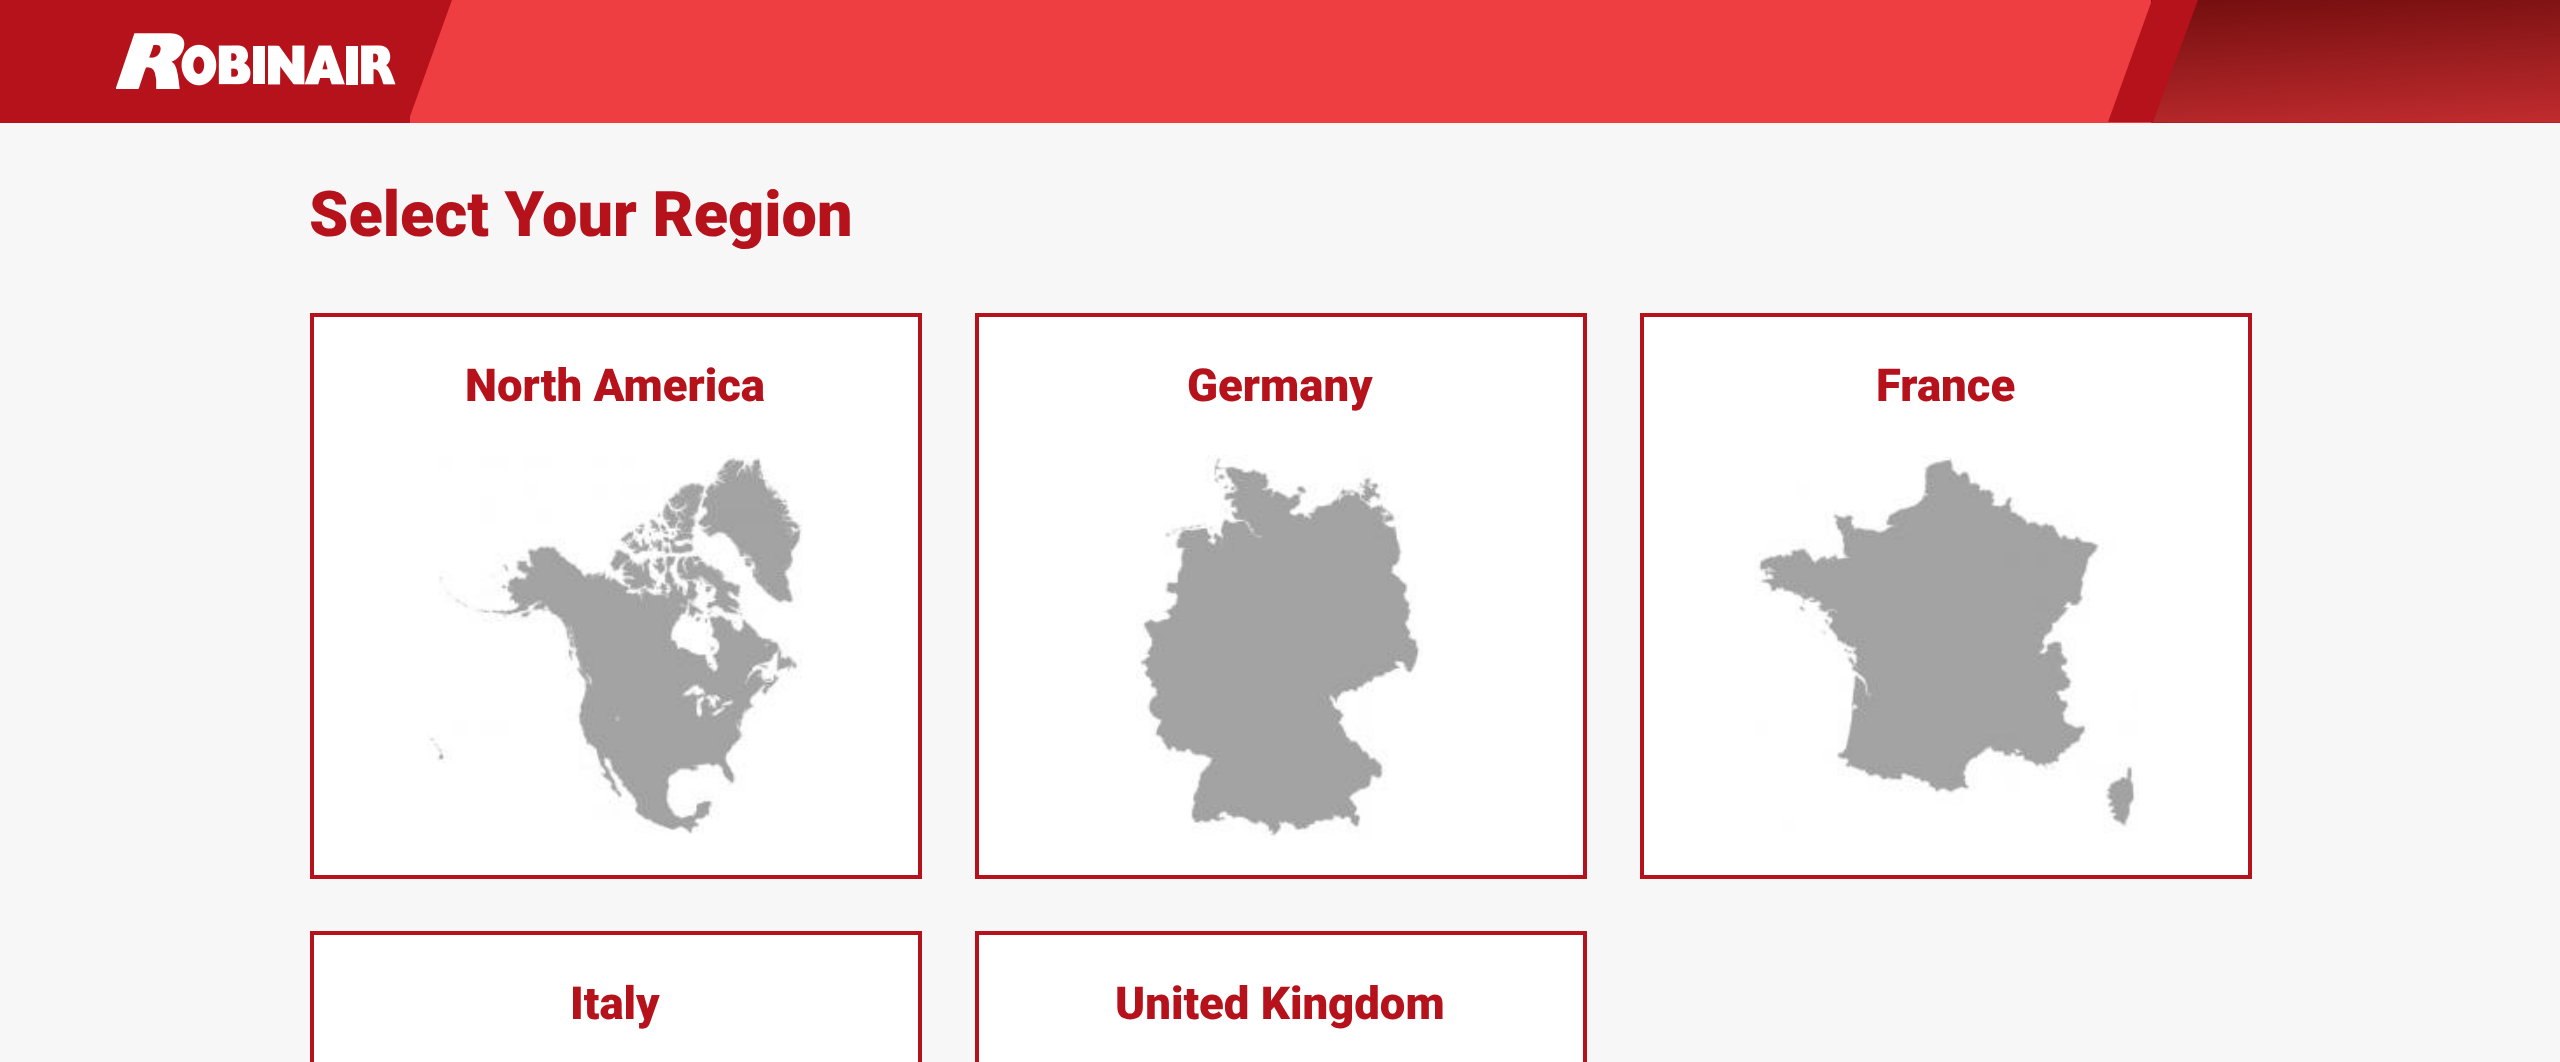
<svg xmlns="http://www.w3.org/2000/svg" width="2560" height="1062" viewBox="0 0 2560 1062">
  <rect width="100%" height="100%" fill="#f7f7f7"/>
  <rect x="0" y="0" width="2560" height="123" fill="#b5121b"/>
  <rect x="410" y="0" width="1741" height="123" fill="#ef3e42"/>
  <path d="M407 0H452L408 122H362Z" fill="#b5121b"/>
  <image x="116" y="33" width="280" height="56" href="img1.png"/>
  <image x="2151" y="0" width="409" height="123" href="img2.png"/>
  <path d="M2152 0H2198L2153 122H2108Z" fill="#b5121b"/>
  <text x="309" y="236" font-family="Roboto" font-size="63" font-weight="900" fill="#b5121b">Select Your Region</text>
  <rect x="312" y="315" width="608" height="562" fill="#ffffff" stroke="#b5121b" stroke-width="4"/>
  <text x="465" y="401" font-family="Roboto" font-size="45.5" font-weight="900" fill="#b5121b">North America</text>
  <image x="427" y="455" width="376" height="379" href="img3.png"/>
  <rect x="977" y="315" width="608" height="562" fill="#ffffff" stroke="#b5121b" stroke-width="4"/>
  <text x="1187" y="401" font-family="Roboto" font-size="45.5" font-weight="900" fill="#b5121b">Germany</text>
  <image x="1136" y="455" width="287" height="385" href="img4.png"/>
  <rect x="1642" y="315" width="608" height="562" fill="#ffffff" stroke="#b5121b" stroke-width="4"/>
  <text x="1876" y="401" font-family="Roboto" font-size="45.5" font-weight="900" fill="#b5121b">France</text>
  <image x="1754" y="455" width="385" height="378" href="img5.png"/>
  <rect x="312" y="933" width="608" height="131" fill="#ffffff" stroke="#b5121b" stroke-width="4"/>
  <text x="570" y="1019" font-family="Roboto" font-size="45.5" font-weight="900" fill="#b5121b">Italy</text>
  <rect x="977" y="933" width="608" height="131" fill="#ffffff" stroke="#b5121b" stroke-width="4"/>
  <text x="1115" y="1019" font-family="Roboto" font-size="45.5" font-weight="900" fill="#b5121b">United Kingdom</text>
</svg>
